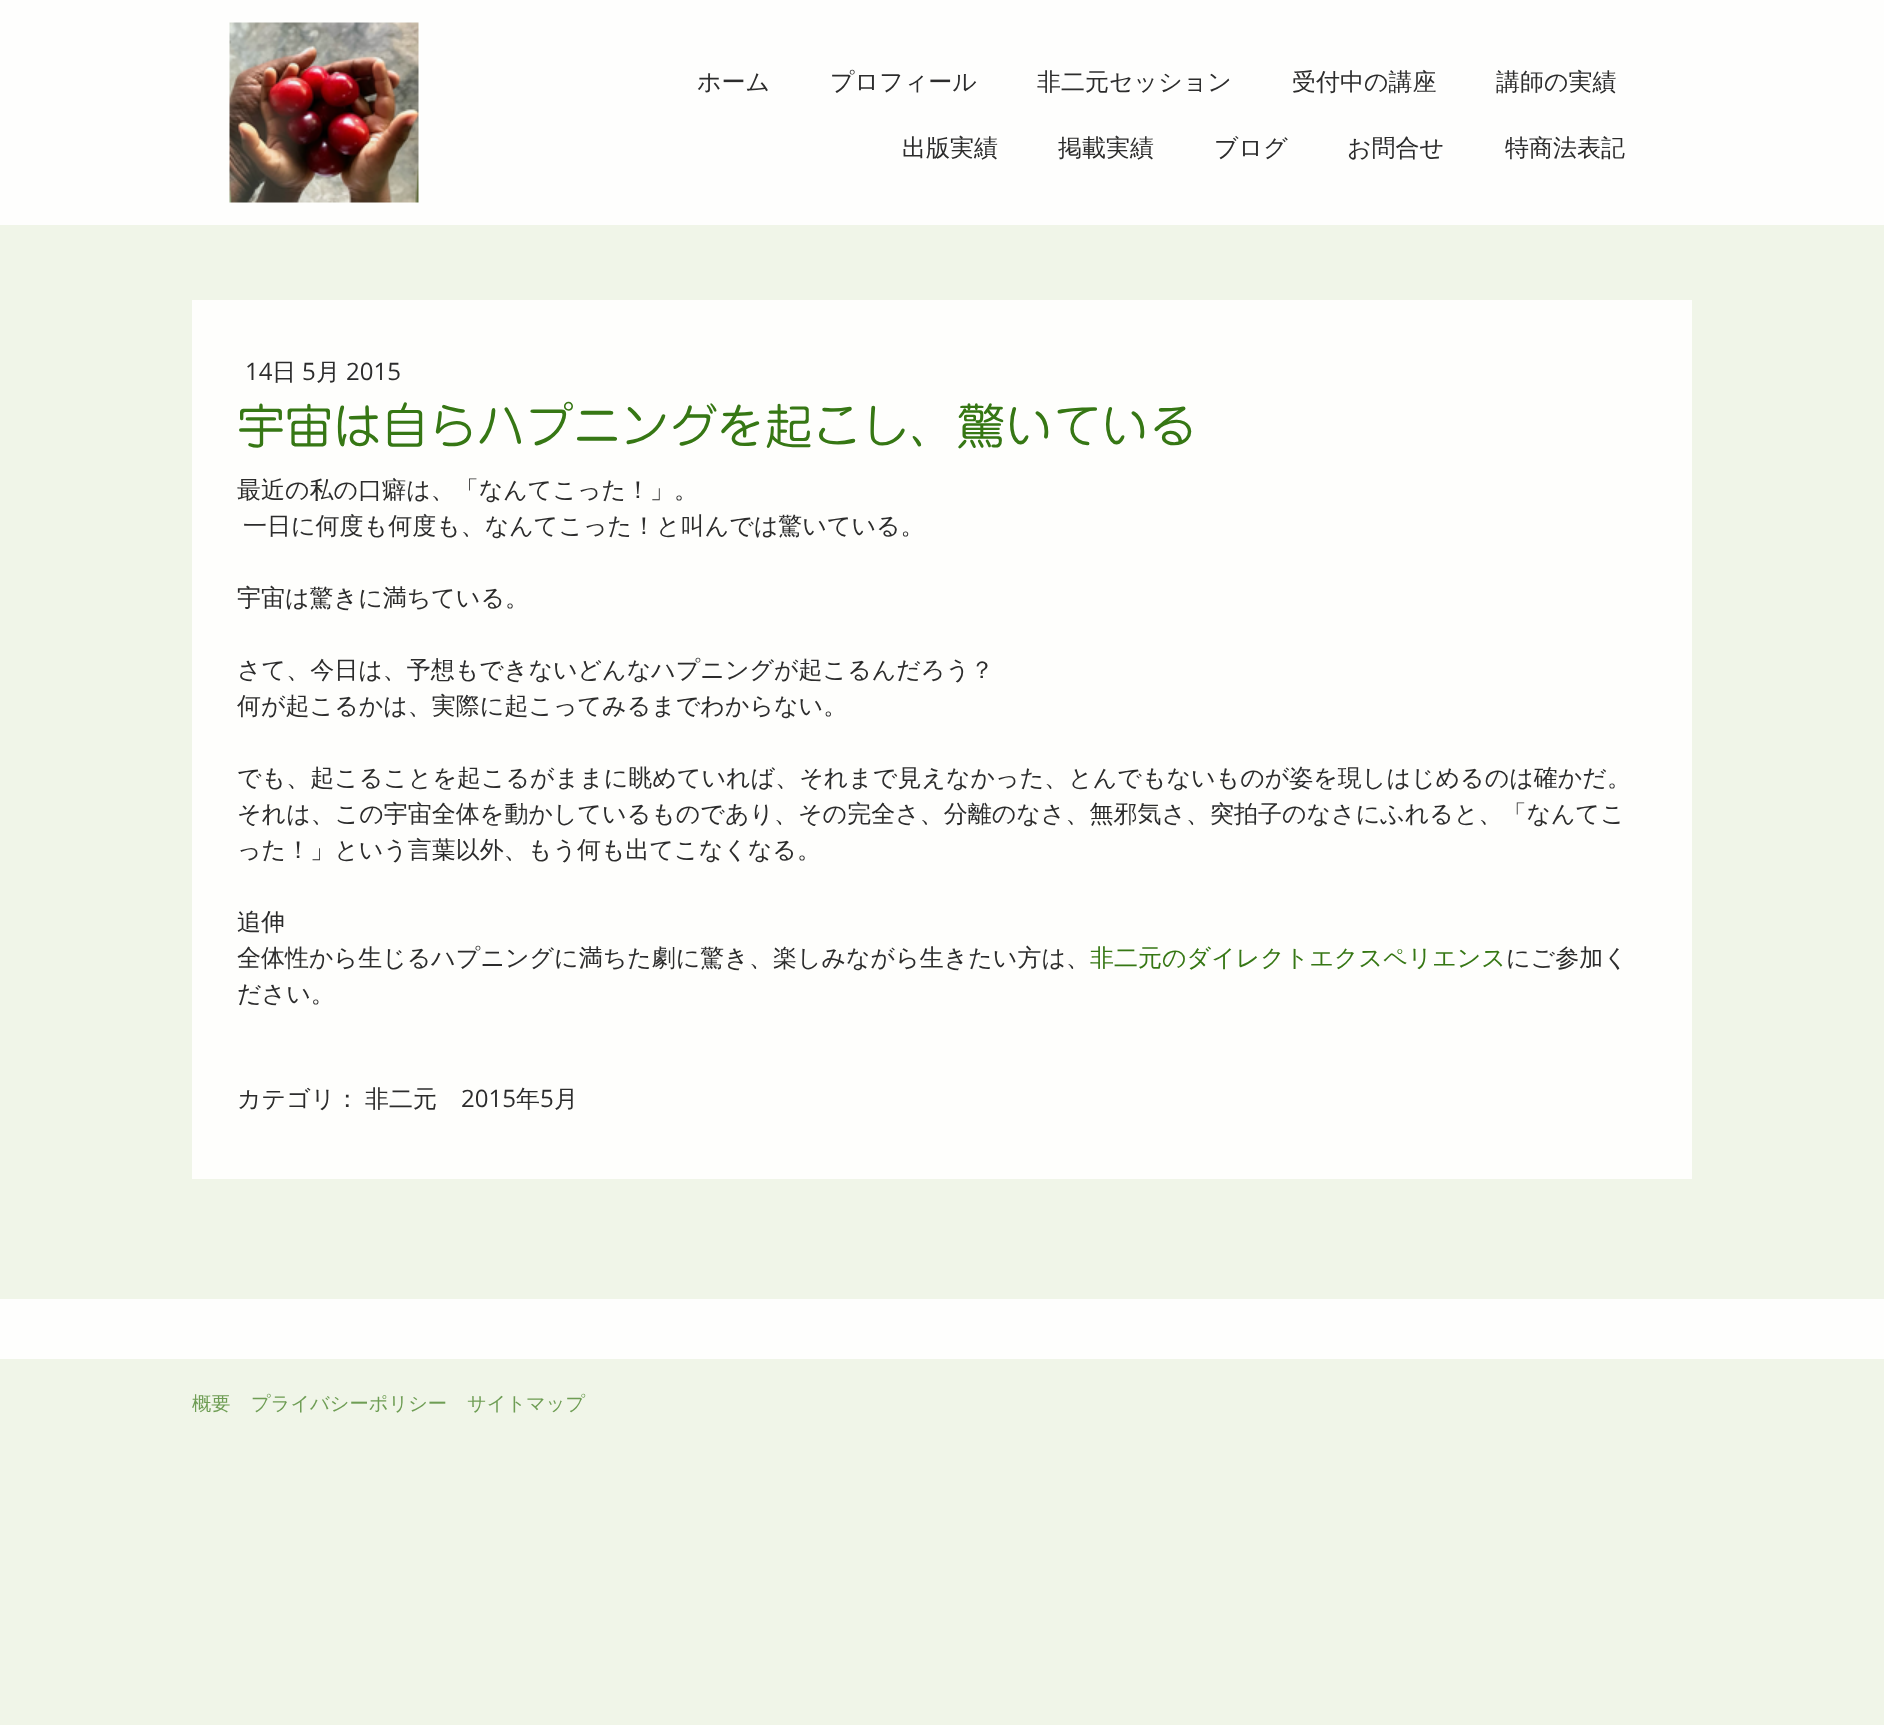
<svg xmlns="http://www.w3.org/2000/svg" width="1884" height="1725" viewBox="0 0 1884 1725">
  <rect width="100%" height="100%" fill="#f0f5e8"/>
  <rect x="0" y="0" width="1884" height="225" fill="#fefefd"/>
  <image x="229" y="22" width="190" height="181" href="img1.png"/>
  <text x="697" y="90" font-family="WenQuanYi Zen Hei" font-size="24" font-weight="500" fill="#2c2c2c">ホーム</text>
  <text x="830" y="90" font-family="WenQuanYi Zen Hei" font-size="24" font-weight="500" fill="#2c2c2c">プロフィール</text>
  <text x="1037" y="90" font-family="WenQuanYi Zen Hei" font-size="24" font-weight="500" fill="#2c2c2c">非二元セッション</text>
  <text x="1292" y="90" font-family="WenQuanYi Zen Hei" font-size="24" font-weight="500" fill="#2c2c2c">受付中の講座</text>
  <text x="1496" y="90" font-family="WenQuanYi Zen Hei" font-size="24" font-weight="500" fill="#2c2c2c">講師の実績</text>
  <text x="902" y="156" font-family="WenQuanYi Zen Hei" font-size="24" font-weight="500" fill="#2c2c2c">出版実績</text>
  <text x="1058" y="156" font-family="WenQuanYi Zen Hei" font-size="24" font-weight="500" fill="#2c2c2c">掲載実績</text>
  <text x="1214" y="156" font-family="WenQuanYi Zen Hei" font-size="24" font-weight="500" fill="#2c2c2c">ブログ</text>
  <text x="1347" y="156" font-family="WenQuanYi Zen Hei" font-size="24" font-weight="500" fill="#2c2c2c">お問合せ</text>
  <text x="1505" y="156" font-family="WenQuanYi Zen Hei" font-size="24" font-weight="500" fill="#2c2c2c">特商法表記</text>
  <rect x="192" y="300" width="1500" height="879" fill="#fefefc"/>
  <text x="245" y="380" font-family="Open Sans" font-size="24" fill="#2c2c2c">14</text>
  <text x="272" y="380" font-family="WenQuanYi Zen Hei" font-size="24" font-weight="500" fill="#2c2c2c">日</text>
  <text x="302" y="380" font-family="Open Sans" font-size="24" fill="#2c2c2c">5</text>
  <text x="316" y="380" font-family="WenQuanYi Zen Hei" font-size="24" font-weight="500" fill="#2c2c2c">月</text>
  <text x="346" y="380" font-family="Open Sans" font-size="24" fill="#2c2c2c">2015</text>
  <text x="237" y="444" font-family="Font" font-size="48" fill="#367714">宇宙は自らハプニングを起こし、驚いている</text>
  <text x="237" y="498" font-family="WenQuanYi Zen Hei" font-size="24" font-weight="500" fill="#2c2c2c">最近の私の口癖は、「なんてこった！」。</text>
  <text x="243" y="534" font-family="WenQuanYi Zen Hei" font-size="24" font-weight="500" fill="#2c2c2c">一日に何度も何度も、なんてこった！と叫んでは驚いている。</text>
  <text x="237" y="606" font-family="WenQuanYi Zen Hei" font-size="24" font-weight="500" fill="#2c2c2c">宇宙は驚きに満ちている。</text>
  <text x="237" y="678" font-family="WenQuanYi Zen Hei" font-size="24" font-weight="500" fill="#2c2c2c">さて、今日は、予想もできないどんなハプニングが起こるんだろう？</text>
  <text x="237" y="714" font-family="WenQuanYi Zen Hei" font-size="24" font-weight="500" fill="#2c2c2c">何が起こるかは、実際に起こってみるまでわからない。</text>
  <text x="237" y="786" font-family="WenQuanYi Zen Hei" font-size="24" font-weight="500" fill="#2c2c2c">でも、起こることを起こるがままに眺めていれば、それまで見えなかった、とんでもないものが姿を現しはじめるのは確かだ。</text>
  <text x="237" y="822" font-family="WenQuanYi Zen Hei" font-size="24" font-weight="500" fill="#2c2c2c">それは、この宇宙全体を動かしているものであり、その完全さ、分離のなさ、無邪気さ、突拍子のなさにふれると、「なんてこ</text>
  <text x="237" y="858" font-family="WenQuanYi Zen Hei" font-size="24" font-weight="500" fill="#2c2c2c">った！」という言葉以外、もう何も出てこなくなる。</text>
  <text x="237" y="930" font-family="WenQuanYi Zen Hei" font-size="24" font-weight="500" fill="#2c2c2c">追伸</text>
  <text x="237" y="966" font-family="WenQuanYi Zen Hei" font-size="24" font-weight="500" fill="#2c2c2c">全体性から生じるハプニングに満ちた劇に驚き、楽しみながら生きたい方は、</text>
  <text x="1090" y="966" font-family="WenQuanYi Zen Hei" font-size="24" font-weight="500" fill="#367714">非二元のダイレクトエクスペリエンス</text>
  <text x="1506" y="966" font-family="WenQuanYi Zen Hei" font-size="24" font-weight="500" fill="#2c2c2c">にご参加く</text>
  <text x="237" y="1002" font-family="WenQuanYi Zen Hei" font-size="24" font-weight="500" fill="#2c2c2c">ださい。</text>
  <text x="237" y="1107" font-family="WenQuanYi Zen Hei" font-size="24" font-weight="500" fill="#2c2c2c">カテゴリ：</text>
  <text x="365" y="1107" font-family="WenQuanYi Zen Hei" font-size="24" font-weight="500" fill="#2c2c2c">非二元</text>
  <text x="461" y="1107" font-family="Open Sans" font-size="24" fill="#2c2c2c">2015</text>
  <text x="516" y="1107" font-family="WenQuanYi Zen Hei" font-size="24" font-weight="500" fill="#2c2c2c">年</text>
  <text x="540" y="1107" font-family="Open Sans" font-size="24" fill="#2c2c2c">5</text>
  <text x="554" y="1107" font-family="WenQuanYi Zen Hei" font-size="24" font-weight="500" fill="#2c2c2c">月</text>
  <rect x="0" y="1299" width="1884" height="60" fill="#fefefd"/>
  <text x="192" y="1410" font-family="WenQuanYi Zen Hei" font-size="19.25" font-weight="500" fill="#6e9d54">概要</text>
  <text x="251" y="1410" font-family="WenQuanYi Zen Hei" font-size="19.25" font-weight="500" fill="#6e9d54">プライバシーポリシー</text>
  <text x="467" y="1410" font-family="WenQuanYi Zen Hei" font-size="19.25" font-weight="500" fill="#6e9d54">サイトマップ</text>
</svg>
